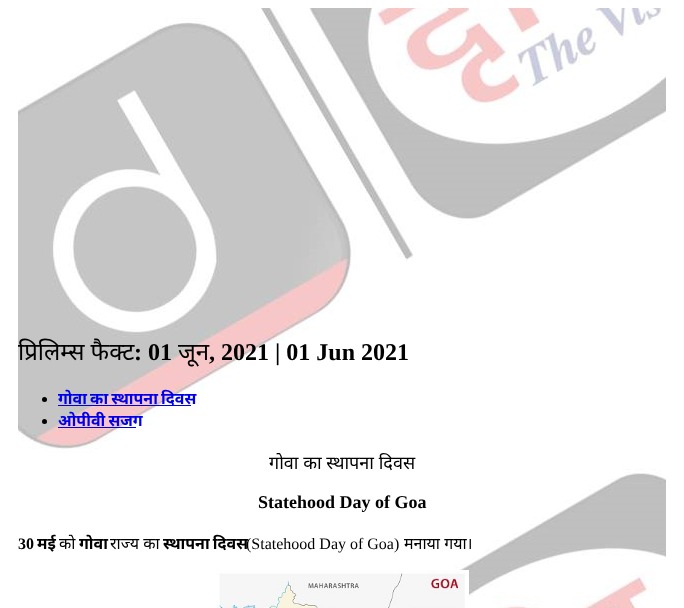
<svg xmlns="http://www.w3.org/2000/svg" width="684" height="608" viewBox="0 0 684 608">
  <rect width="100%" height="100%" fill="#ffffff"/>
  <image x="18" y="8" width="648" height="600" href="img1.png"/>
  <text x="18" y="360" font-family="Noto Sans" font-size="24" fill="#000000">प्रिलिम्स फैक्ट</text>
  <text x="134" y="360" font-family="Liberation Serif" font-size="24" font-weight="bold" fill="#000000">: 01</text>
  <text x="178" y="360" font-family="Noto Sans" font-size="24" fill="#000000">जून</text>
  <text x="209" y="360" font-family="Liberation Serif" font-size="24" font-weight="bold" fill="#000000">, 2021 | 01 Jun 2021</text>
  <circle cx="44.5" cy="399.5" r="2.5" fill="#000000"/>
  <rect x="58" y="405" width="133" height="1" fill="#0000ee"/>
  <text x="58" y="404" word-spacing="-1" font-family="Noto Sans" font-size="16" font-weight="bold" fill="#0000ee">गोवा का स्थापना दिवस</text>
  <circle cx="44.5" cy="421.5" r="2.5" fill="#000000"/>
  <text x="58" y="426" word-spacing="-1" font-family="Noto Sans" font-size="16" font-weight="bold" fill="#0000ee">ओपीवी सजग</text>
  <rect x="58" y="427" width="78" height="1" fill="#0000ee"/>
  <text x="269" y="469" font-family="Noto Sans" font-size="18" fill="#000000">गोवा का स्थापना दिवस</text>
  <text x="258" y="508" font-family="Liberation Serif" font-size="18" font-weight="bold" fill="#000000">Statehood Day of Goa</text>
  <text x="18" y="549" font-family="Liberation Serif" font-size="16" font-weight="bold" fill="#000000">30</text>
  <text x="37" y="549" font-family="Noto Sans" font-size="16" font-weight="bold" fill="#000000">मई</text>
  <text x="59" y="549" font-family="Noto Sans" font-size="16" fill="#000000">को</text>
  <text x="79" y="549" font-family="Noto Sans" font-size="16" font-weight="bold" fill="#000000">गोवा</text>
  <text x="110" y="549" font-family="Noto Sans" font-size="16" fill="#000000">राज्य का</text>
  <text x="163" y="549" word-spacing="-1" font-family="Noto Sans" font-size="16" font-weight="bold" fill="#000000">स्थापना दिवस</text>
  <text x="246" y="549" font-family="Liberation Serif" font-size="16" fill="#000000">(Statehood Day of Goa)</text>
  <text x="404" y="549" font-family="Noto Sans" font-size="16" fill="#000000">मनाया गया।</text>
  <image x="217" y="570" width="252" height="38" href="img2.png"/>
</svg>
